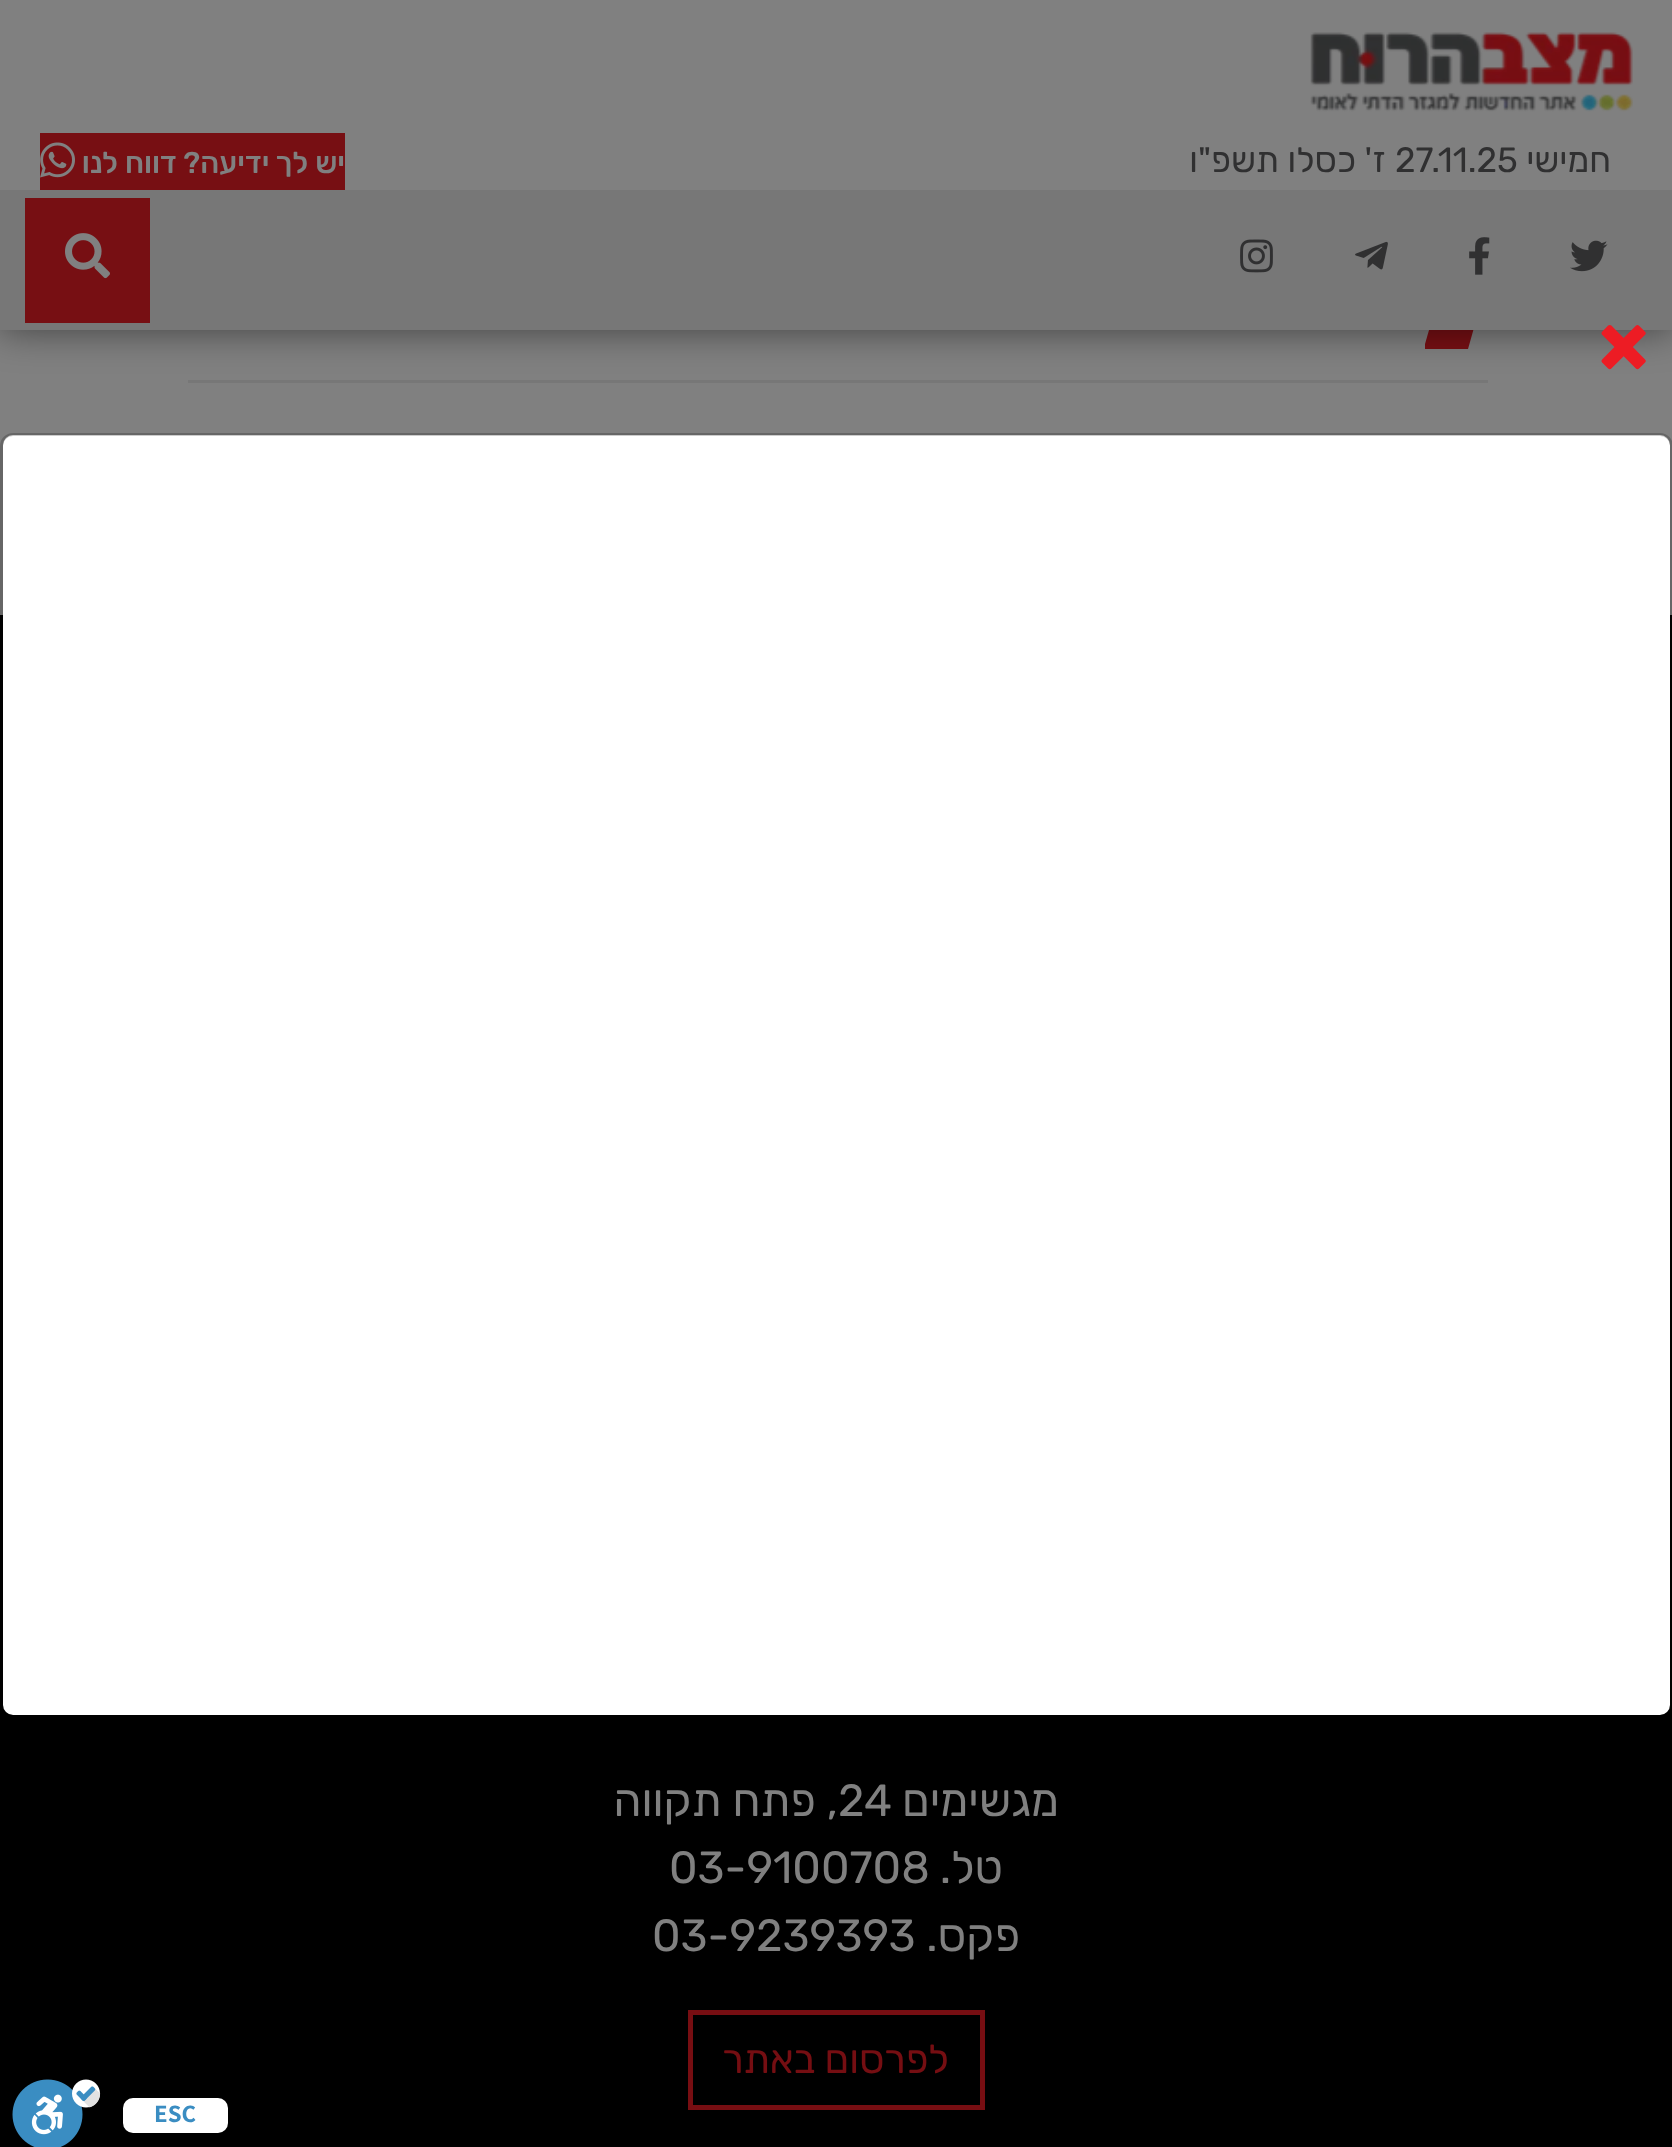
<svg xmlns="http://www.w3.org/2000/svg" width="1672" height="2147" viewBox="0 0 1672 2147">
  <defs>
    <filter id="blur1" x="-50%" y="-200%" width="200%" height="500%"><feGaussianBlur stdDeviation="19"/></filter>
  </defs>
  <rect width="100%" height="100%" fill="#808080"/>
  <path d="M1425 344L1442 285H1486L1468 349H1425Z" fill="#770f13"/>
  <rect x="188" y="380" width="1300" height="3" fill="#777777"/>
  <rect x="0" y="0" width="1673" height="330" fill="#000000" fill-opacity="0.5" filter="url(#blur1)"/>
  <rect x="0" y="0" width="1672" height="190" fill="#808080"/>
  <image x="1310" y="32" width="323" height="80" href="img1.png"/>
  <text x="1611" y="172" font-family="Rubik" font-size="35" direction="rtl" fill="#303031">חמישי</text>
  <text x="1395" y="172" font-family="Rubik" font-size="35" fill="#303031">27.11.25</text>
  <text x="1386" y="172" font-family="Rubik" font-size="35" direction="rtl" fill="#303031">ז' כסלו תשפ"ו</text>
  <rect x="40" y="133" width="305" height="57" fill="#770f13"/>
  <text x="345" y="173" font-family="Rubik" font-size="30" font-weight="500" direction="rtl" fill="#808080">יש לך ידיעה? דווח לנו</text>
  <image x="40" y="142" width="35" height="36" href="img2.png"/>
  <rect x="0" y="190" width="1672" height="140" fill="#777777"/>
  <image x="1570" y="240" width="38" height="32" href="img3.png"/>
  <image x="1469" y="237" width="21" height="38" href="img4.png"/>
  <image x="1355" y="241" width="33" height="29" href="img5.png"/>
  <image x="1240" y="239" width="33" height="34" href="img6.png"/>
  <rect x="25" y="198" width="125" height="125" fill="#770f13"/>
  <image x="65" y="233" width="45" height="46" href="img7.png"/>
  <rect x="0" y="615" width="1672" height="1532" fill="#000000"/>
  <rect x="3" y="435" width="1667" height="1280" rx="10" fill="#ffffff"/>
  <rect x="1.5" y="434.5" width="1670" height="1282" rx="11.5" fill="none" stroke="#000000" stroke-opacity="0.2" stroke-width="3"/>
  <text x="1597" y="374" font-family="Rubik" font-size="90" font-weight="600" fill="#ed1c24">×</text>
  <text x="1059" y="1816" font-family="Rubik" font-size="45" direction="rtl" fill="#808080">מגשימים</text>
  <text x="838" y="1816" font-family="Rubik" font-size="45" fill="#808080">24</text>
  <text x="838" y="1816" font-family="Rubik" font-size="45" direction="rtl" fill="#808080">, פתח תקווה</text>
  <text x="1003" y="1883" font-family="Rubik" font-size="45" direction="rtl" fill="#808080">טל.</text>
  <text x="669" y="1883" font-family="Rubik" font-size="45" fill="#808080">03-9100708</text>
  <text x="1020" y="1951" font-family="Rubik" font-size="45" direction="rtl" fill="#808080">פקס.</text>
  <text x="652" y="1951" font-family="Rubik" font-size="45" fill="#808080">03-9239393</text>
  <rect x="690.5" y="2012.5" width="292" height="95" fill="none" stroke="#770e12" stroke-width="5"/>
  <text x="949" y="2073" font-family="Rubik" font-size="40" direction="rtl" fill="#750e12">לפרסום באתר</text>
  <rect x="123" y="2098" width="105" height="35" rx="10" fill="#ffffff"/>
  <text x="154" y="2122" font-family="Assistant" font-size="25" font-weight="bold" fill="#3a8dc2">ESC</text>
  <image x="12" y="2079" width="89" height="68" href="img8.png"/>
</svg>
